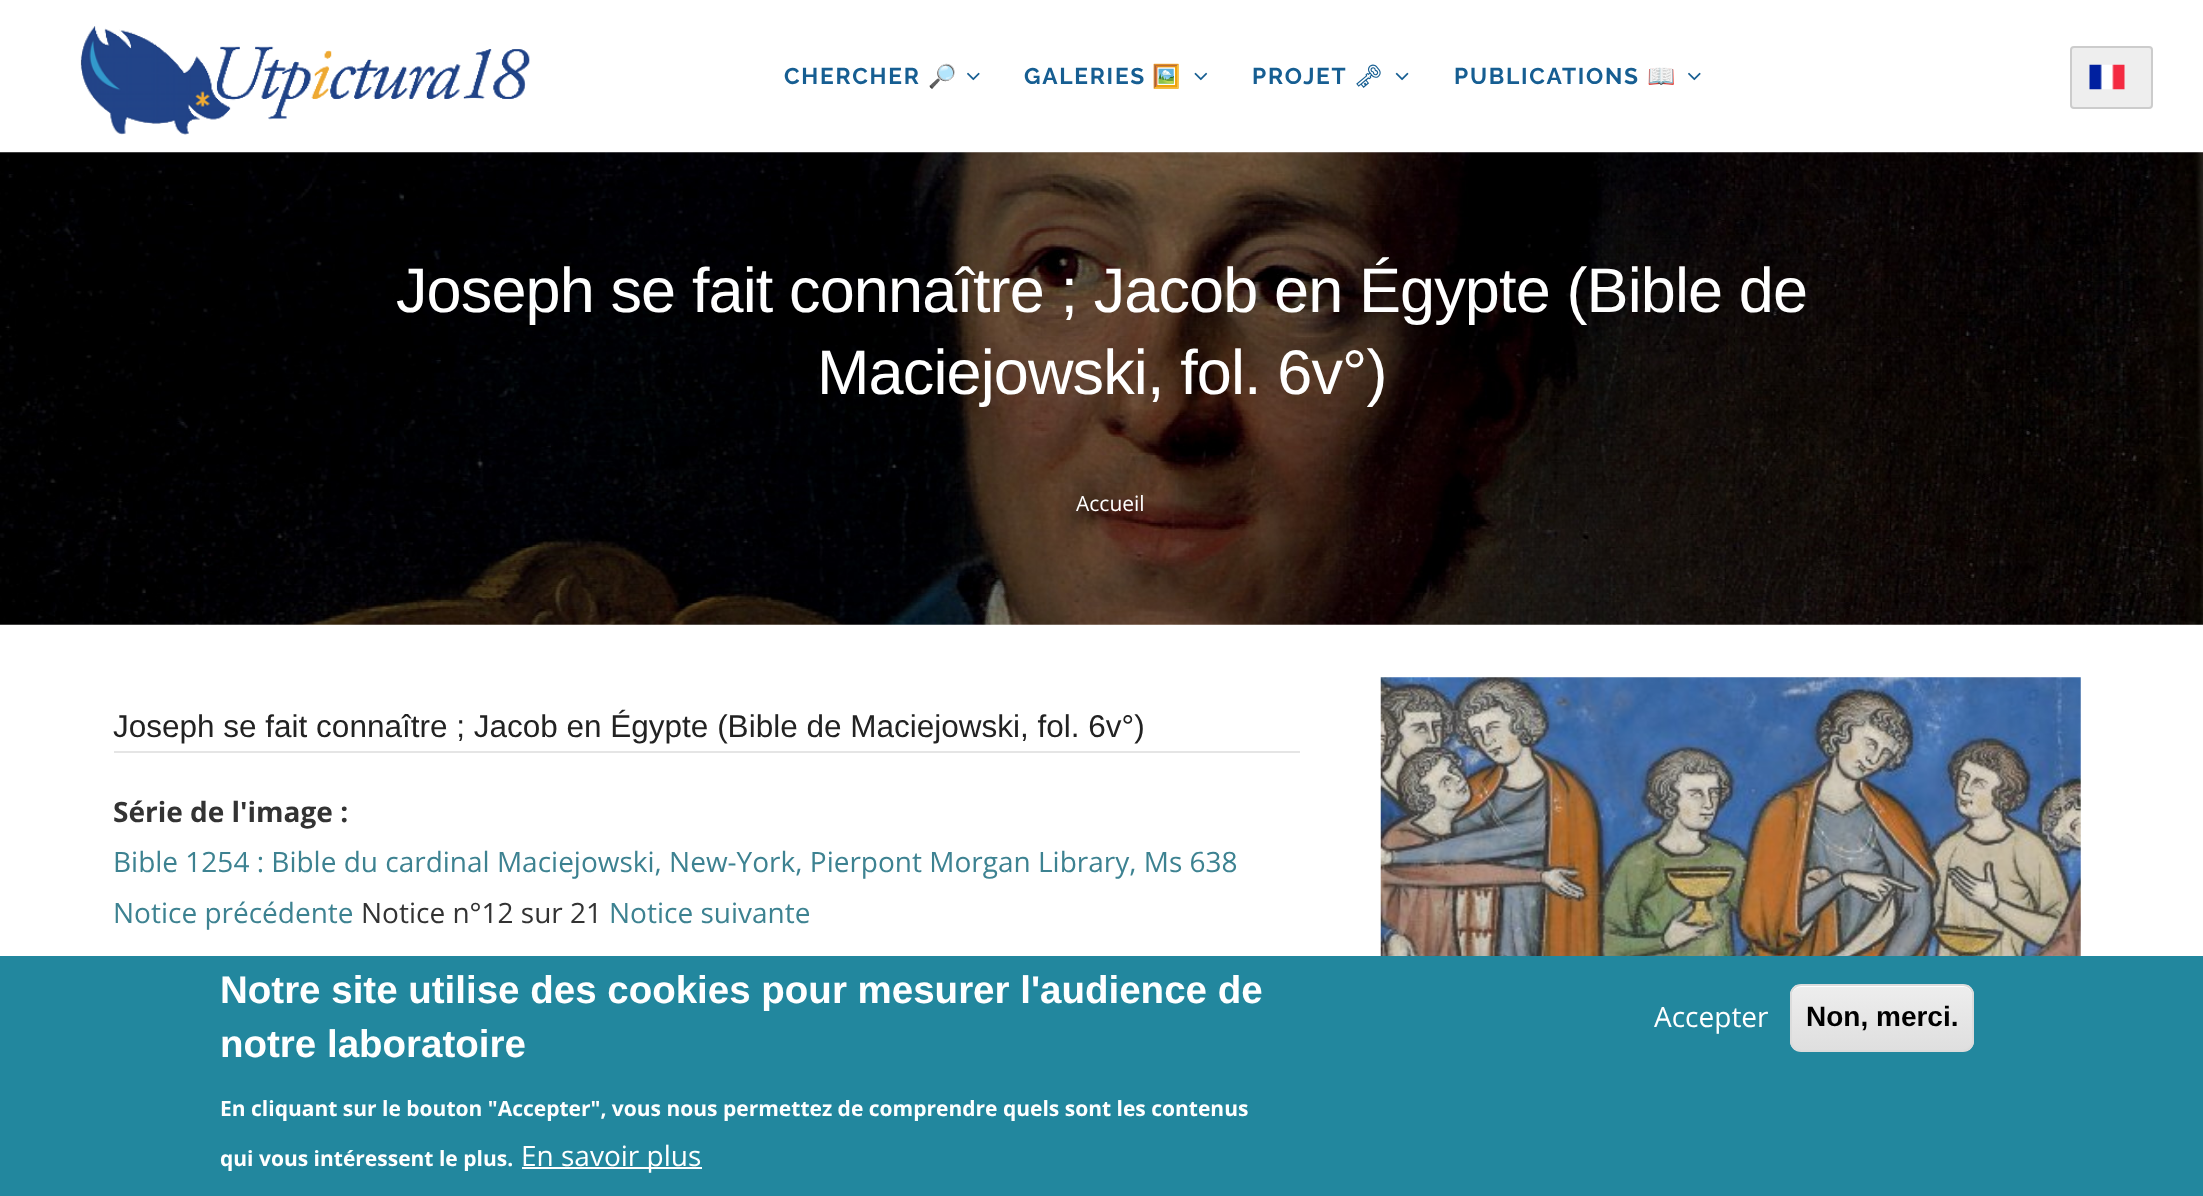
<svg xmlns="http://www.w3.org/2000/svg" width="2203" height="1196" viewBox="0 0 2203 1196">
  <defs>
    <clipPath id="clip1"><rect x="1790" y="984" width="184" height="68" rx="11"/></clipPath>
    <linearGradient id="g1" gradientUnits="userSpaceOnUse" x1="1882" y1="985" x2="1882" y2="1050"><stop offset="0.05" stop-color="#ededed"/><stop offset="1" stop-color="#dfdfdf"/></linearGradient>
  </defs>
  <rect width="100%" height="100%" fill="#ffffff"/>
  <image x="80" y="26" width="450" height="109" href="img1.png"/>
  <text x="784" y="84" font-family="Raleway" font-size="22.75" font-weight="bold" letter-spacing="1.75" fill="#165e92">CHERCHER</text>
  <text x="928" y="84" font-family="Noto Color Emoji" font-size="22.75" font-weight="bold" letter-spacing="1.75" fill="#165e92">🔎</text>
  <image x="967" y="72" width="13" height="9" href="img2.png"/>
  <text x="1024" y="84" font-family="Raleway" font-size="22.75" font-weight="bold" letter-spacing="1.75" fill="#165e92">GALERIES</text>
  <text x="1152" y="84" font-family="Noto Color Emoji" font-size="22.75" font-weight="bold" letter-spacing="1.75" fill="#165e92">🖼️</text>
  <image x="1194" y="72" width="14" height="9" href="img3.png"/>
  <text x="1252" y="84" font-family="Raleway" font-size="22.75" font-weight="bold" letter-spacing="1.75" fill="#165e92">PROJET</text>
  <text x="1354" y="84" font-family="Noto Emoji" font-size="22.75" font-weight="bold" letter-spacing="1.75" fill="#165e92">🗝</text>
  <image x="1395" y="72" width="14" height="9" href="img4.png"/>
  <text x="1454" y="84" font-family="Raleway" font-size="22.75" font-weight="bold" letter-spacing="1.75" fill="#165e92">PUBLICATIONS</text>
  <text x="1647" y="84" font-family="Noto Color Emoji" font-size="22.75" font-weight="bold" letter-spacing="1.75" fill="#165e92">📖</text>
  <image x="1688" y="72" width="13" height="9" href="img2.png"/>
  <rect x="2071" y="47" width="81" height="61" rx="3" fill="#eeeeee" stroke="#cccccc" stroke-width="2"/>
  <image x="2089" y="64" width="36" height="26" href="img5.png"/>
  <image x="0" y="152" width="2203" height="473" href="img6.png"/>
  <text x="396" y="312" font-family="Liberation Sans" font-size="63" letter-spacing="-0.88" fill="#ffffff">Joseph se fait connaître ; Jacob en Égypte (Bible de</text>
  <text x="817" y="394" font-family="Liberation Sans" font-size="63" letter-spacing="-0.88" fill="#ffffff">Maciejowski, fol. 6v°)</text>
  <text x="1076" y="511" font-family="Open Sans" font-size="21" fill="#ffffff">Accueil</text>
  <rect x="114" y="751" width="1186" height="2" fill="#e5e5e5"/>
  <text x="113" y="737" font-family="Liberation Sans" font-size="31.5" fill="#222222">Joseph se fait connaître ; Jacob en Égypte (Bible de Maciejowski, fol. 6v°)</text>
  <text x="113" y="822" font-family="Open Sans" font-size="28" font-weight="bold" fill="#333333">Série de l'image :</text>
  <text x="113" y="872" font-family="Open Sans" font-size="28" fill="#3d8291">Bible 1254 : Bible du cardinal Maciejowski, New-York, Pierpont Morgan Library, Ms 638</text>
  <text x="113" y="923" font-family="Open Sans" font-size="28" fill="#3d8291">Notice précédente</text>
  <text x="361" y="923" font-family="Open Sans" font-size="28" fill="#333333">Notice n°12 sur 21</text>
  <text x="609" y="923" font-family="Open Sans" font-size="28" fill="#3d8291">Notice suivante</text>
  <image x="1380" y="677" width="701" height="279" href="img7.png"/>
  <rect x="0" y="956" width="2203" height="240" fill="#22879e"/>
  <text x="220" y="1003" font-family="Liberation Sans" font-size="38.5" font-weight="bold" fill="#ffffff">Notre site utilise des cookies pour mesurer l'audience de</text>
  <text x="220" y="1057" font-family="Liberation Sans" font-size="38.5" font-weight="bold" fill="#ffffff">notre laboratoire</text>
  <text x="220" y="1116" font-family="Open Sans" font-size="21" font-weight="bold" fill="#ffffff">En cliquant sur le bouton "Accepter", vous nous permettez de comprendre quels sont les contenus</text>
  <text x="220" y="1166" font-family="Open Sans" font-size="21" font-weight="bold" fill="#ffffff">qui vous intéressent le plus.</text>
  <rect x="522" y="1167" width="180" height="2" fill="#ffffff"/>
  <text x="521" y="1166" font-family="Open Sans" font-size="28" fill="#ffffff">En savoir plus</text>
  <text x="1654" y="1027" font-family="Open Sans" font-size="28" fill="#ffffff">Accepter</text>
  <g clip-path="url(#clip1)">
    <rect x="1790" y="985" width="184" height="65" fill="url(#g1)"/>
  </g>
  <path d="M1801 987H1964C1968 987 1972 991 1972 996V994C1972 989 1968 985 1963 985H1801C1796 985 1792 989 1792 994V996C1792 991 1796 987 1801 987Z" fill="#ffffff"/>
  <rect x="1791" y="985" width="182" height="66" rx="10" fill="none" stroke="#dcdcdc" stroke-width="2"/>
  <text x="1806" y="1026" font-family="Liberation Sans" font-size="28" font-weight="bold" fill="#000000">Non, merci.</text>
</svg>
